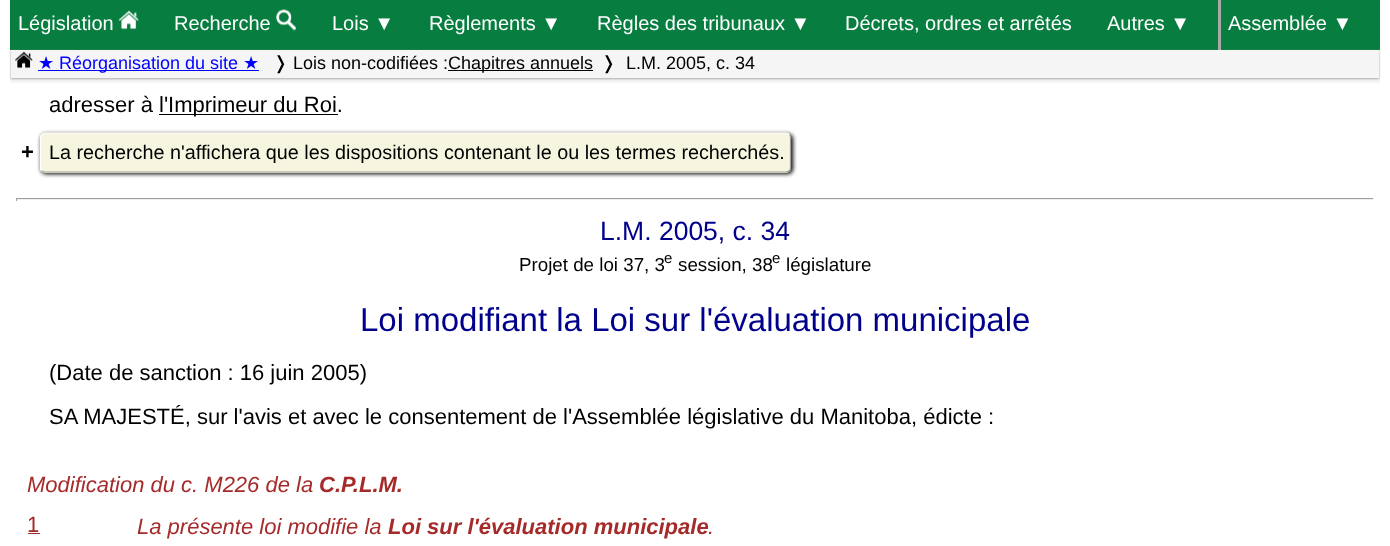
<svg xmlns="http://www.w3.org/2000/svg" width="1390" height="546" viewBox="0 0 1390 546">
  <defs>
    <filter id="blur1" x="-50%" y="-200%" width="200%" height="500%"><feGaussianBlur stdDeviation="1"/></filter>
    <filter id="blur2" x="-50%" y="-200%" width="200%" height="500%"><feGaussianBlur stdDeviation="2"/></filter>
  </defs>
  <rect width="100%" height="100%" fill="#ffffff"/>
  <rect x="10" y="50" width="1370" height="33" fill="#f5f5f5"/>
  <rect x="10" y="0" width="1370" height="50" fill="#077d40"/>
  <text x="18" y="30" font-family="Liberation Sans" font-size="20" fill="#ffffff">Législation</text>
  <image x="118" y="10" width="21" height="20" href="img1.png"/>
  <text x="174" y="30" font-family="Liberation Sans" font-size="20" fill="#ffffff">Recherche</text>
  <image x="276" y="9" width="21" height="22" href="img2.png"/>
  <text x="332" y="30" font-family="Liberation Sans" font-size="20" fill="#ffffff">Lois ▼</text>
  <text x="429" y="30" font-family="Liberation Sans" font-size="20" fill="#ffffff">Règlements ▼</text>
  <text x="597" y="30" font-family="Liberation Sans" font-size="20" fill="#ffffff">Règles des tribunaux ▼</text>
  <text x="845" y="30" font-family="Liberation Sans" font-size="20" fill="#ffffff">Décrets, ordres et arrêtés</text>
  <text x="1107" y="30" font-family="Liberation Sans" font-size="20" fill="#ffffff">Autres ▼</text>
  <rect x="1218" y="0" width="3" height="50" fill="#a9a9a9"/>
  <text x="1228" y="30" font-family="Liberation Sans" font-size="20" fill="#ffffff">Assemblée ▼</text>
  <rect x="11" y="51" width="1368" height="28" fill="#a9a9a9" filter="url(#blur1)"/>
  <rect x="11" y="50" width="1368" height="28" fill="#f5f5f5"/>
  <image x="15" y="51" width="18" height="18" href="img3.png"/>
  <text x="38" y="69" font-family="DejaVu Sans" font-size="18" fill="#0000ff">★</text>
  <rect x="38" y="70" width="221" height="1" fill="#0000ff"/>
  <text x="59" y="69" font-family="Liberation Sans" font-size="18" fill="#0000ff">Réorganisation du site</text>
  <text x="243" y="69" font-family="DejaVu Sans" font-size="18" fill="#0000ff">★</text>
  <text x="273" y="69" font-family="DejaVu Sans" font-size="18" fill="#000000">❭</text>
  <text x="293" y="69" font-family="Liberation Sans" font-size="18" fill="#000000">Lois non-codifiées :</text>
  <rect x="448" y="70" width="145" height="1" fill="#000000"/>
  <text x="448" y="69" font-family="Liberation Sans" font-size="18" fill="#000000">Chapitres annuels</text>
  <text x="601" y="69" font-family="DejaVu Sans" font-size="18" fill="#000000">❭</text>
  <text x="626" y="69" font-family="Liberation Sans" font-size="18" fill="#000000">L.M. 2005, c. 34</text>
  <text x="49" y="112" font-family="Liberation Sans" font-size="22" fill="#000000">adresser à</text>
  <rect x="159" y="114" width="179" height="1" fill="#000000"/>
  <text x="159" y="112" font-family="Liberation Sans" font-size="22" fill="#000000">l'Imprimeur du Roi.</text>
  <text x="21" y="159" font-family="Liberation Sans" font-size="22" font-weight="bold" fill="#000000">+</text>
  <rect x="41" y="134" width="752" height="40" rx="5" fill="#000000" filter="url(#blur2)"/>
  <rect x="40" y="133" width="751" height="40" rx="5" fill="#f6f6e0"/>
  <path d="M789.5 134.5C790 135 790.5 136.5 790.5 137.5V167.5C790.5 168.5 790 170 789.5 170.5C788.5 171.5 787.5 172 786 172H45C44 172 42.5 171.5 42 170.5" fill="none" stroke="#999999" stroke-width="1.2"/>
  <path d="M42 170.5C41 170 40.5 168.5 40.5 167.5V137.5C40.5 136.5 41 135 42 134.5C42.5 133.5 44 133 45 133H786C787.5 133 788.5 133.5 789.5 134.5" fill="none" stroke="#ffffff" stroke-width="1.2"/>
  <text x="49" y="159" font-family="Liberation Sans" font-size="19.8" fill="#000000">La recherche n'affichera que les dispositions contenant le ou les termes recherchés.</text>
  <rect x="16" y="198" width="1358" height="1" fill="#9f9f9f"/>
  <rect x="1373" y="198" width="1" height="3" fill="#eeeeee"/>
  <rect x="16" y="199" width="1358" height="1" fill="#eeeeee"/>
  <rect x="16" y="198" width="1" height="3" fill="#9f9f9f"/>
  <text x="600" y="240" font-family="Liberation Sans" font-size="26.5" fill="#00008b">L.M. 2005, c. 34</text>
  <text x="519" y="271" font-family="Liberation Sans" font-size="18.75" fill="#000000">Projet de loi 37, 3</text>
  <text x="664" y="263" font-family="Liberation Sans" font-size="15" fill="#000000">e</text>
  <text x="678" y="271" font-family="Liberation Sans" font-size="18.75" fill="#000000">session, 38</text>
  <text x="772" y="263" font-family="Liberation Sans" font-size="15" fill="#000000">e</text>
  <text x="786" y="271" font-family="Liberation Sans" font-size="18.75" fill="#000000">législature</text>
  <text x="360" y="331" font-family="Liberation Sans" font-size="33" fill="#00008b">Loi modifiant la Loi sur l'évaluation municipale</text>
  <text x="49" y="380" font-family="Liberation Sans" font-size="22" fill="#000000">(Date de sanction : 16 juin 2005)</text>
  <text x="49" y="424" font-family="Liberation Sans" font-size="22" fill="#000000">SA MAJESTÉ, sur l'avis et avec le consentement de l'Assemblée législative du Manitoba, édicte :</text>
  <text x="27" y="492" font-family="Liberation Sans" font-size="22" font-style="italic" fill="#a52a2a">Modification du c. M226 de la</text>
  <text x="319" y="492" font-family="Liberation Sans" font-size="22" font-weight="bold" font-style="italic" fill="#a52a2a">C.P.L.M.</text>
  <text x="27" y="532" font-family="Liberation Sans" font-size="22" fill="#a52a2a">1</text>
  <rect x="28" y="533" width="12" height="1" fill="#a52a2a"/>
  <text x="137" y="534" font-family="Liberation Sans" font-size="22" font-style="italic" fill="#a52a2a">La présente loi modifie la</text>
  <text x="388" y="534" font-family="Liberation Sans" font-size="22" font-weight="bold" font-style="italic" fill="#a52a2a">Loi sur l'évaluation municipale</text>
  <text x="708" y="534" font-family="Liberation Sans" font-size="22" font-style="italic" fill="#a52a2a">.</text>
</svg>
